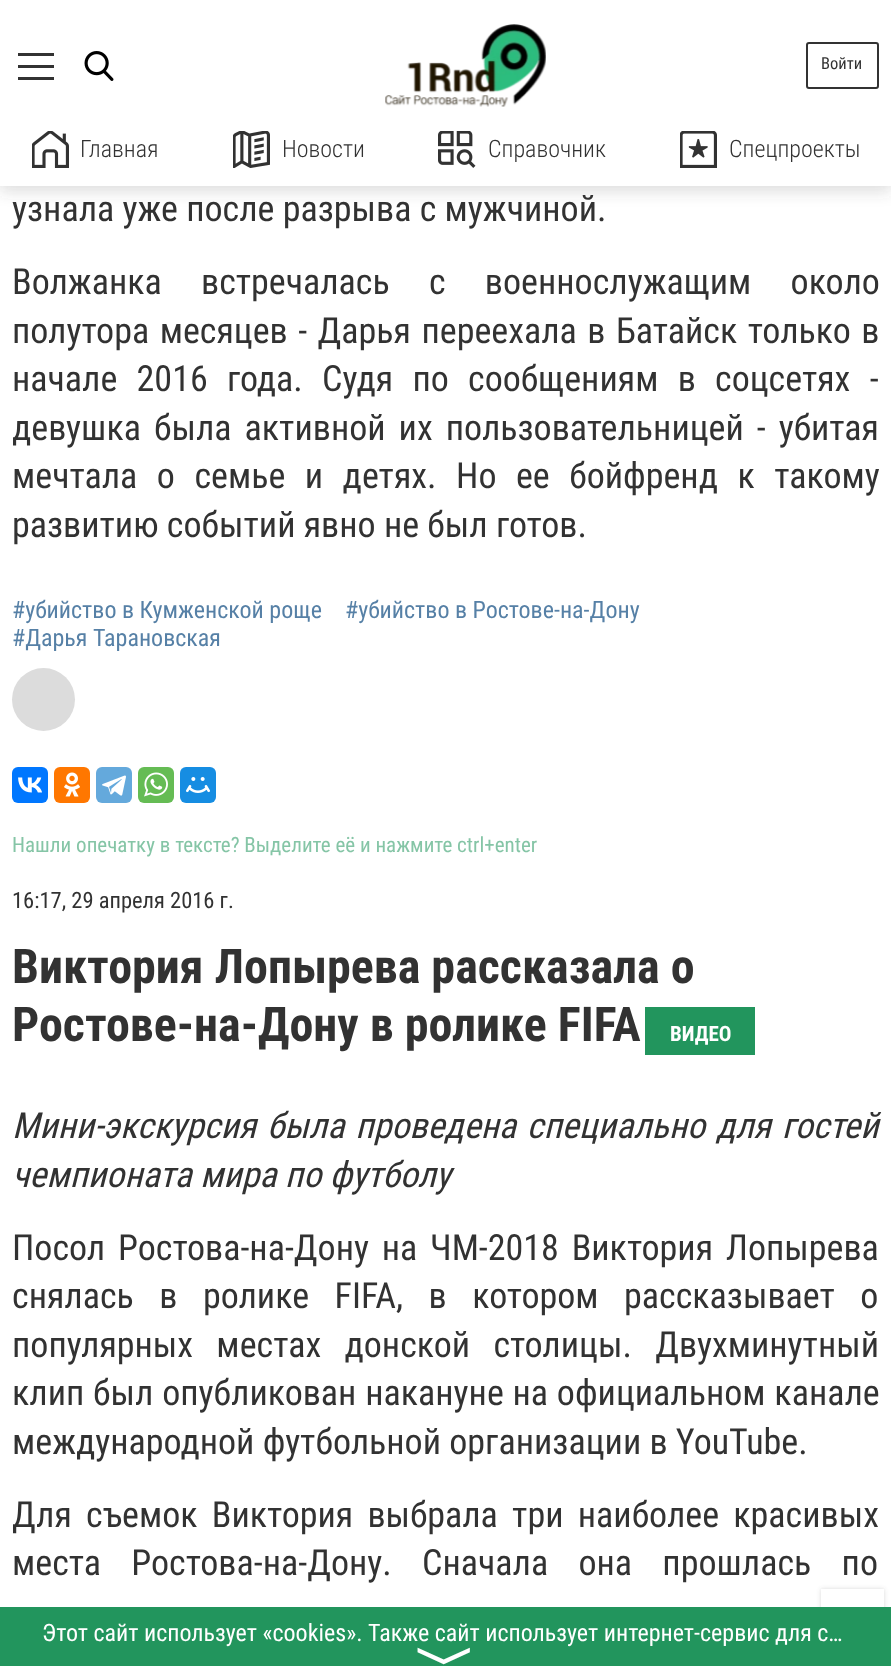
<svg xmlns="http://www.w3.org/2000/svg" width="891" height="1666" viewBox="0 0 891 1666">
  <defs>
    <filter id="blur1" x="-50%" y="-200%" width="200%" height="500%"><feGaussianBlur stdDeviation="7.5"/></filter>
    <filter id="blur2" x="-50%" y="-200%" width="200%" height="500%"><feGaussianBlur stdDeviation="2"/></filter>
  </defs>
  <rect width="100%" height="100%" fill="#ffffff"/>
  <rect x="0" y="5" width="891" height="186" fill="#4e4e4e" fill-opacity="0.2" filter="url(#blur1)"/>
  <rect x="0" y="0" width="891" height="186" fill="#ffffff"/>
  <rect x="18" y="65" width="36" height="3" fill="#323232"/>
  <rect x="18" y="53" width="36" height="3" fill="#323232"/>
  <rect x="18" y="77" width="36" height="3" fill="#323232"/>
  <image x="84" y="51" width="30" height="30" href="img1.png"/>
  <image x="385" y="24" width="161" height="83" href="img2.png"/>
  <rect x="807" y="43" width="71" height="45" rx="2" fill="none" stroke="#323232" stroke-width="2"/>
  <text x="821" y="69" font-family="Roboto Condensed" font-size="16.5" fill="#323232">Войти</text>
  <image x="32" y="131" width="37" height="37" href="img3.png"/>
  <text x="80" y="157" font-family="Roboto Condensed" font-size="24" font-weight="300" fill="#323232">Главная</text>
  <image x="233" y="131" width="37" height="37" href="img4.png"/>
  <text x="282" y="157" font-family="Roboto Condensed" font-size="24" font-weight="300" fill="#323232">Новости</text>
  <image x="438" y="131" width="38" height="37" href="img5.png"/>
  <text x="488" y="157" font-family="Roboto Condensed" font-size="24" font-weight="300" fill="#323232">Справочник</text>
  <image x="680" y="131" width="37" height="37" href="img6.png"/>
  <text x="729" y="157" font-family="Roboto Condensed" font-size="24" font-weight="300" fill="#323232">Спецпроекты</text>
  <text x="12" y="221" font-family="Roboto Condensed" font-size="36" fill="#323232">узнала уже после разрыва с мужчиной.</text>
  <text x="12" y="294" word-spacing="31" font-family="Roboto Condensed" font-size="36" fill="#323232">Волжанка встречалась с военнослужащим около</text>
  <text x="12" y="343" word-spacing="2.25" font-family="Roboto Condensed" font-size="36" fill="#323232">полутора месяцев - Дарья переехала в Батайск только в</text>
  <text x="12" y="391" word-spacing="11" font-family="Roboto Condensed" font-size="36" fill="#323232">начале 2016 года. Судя по сообщениям в соцсетях -</text>
  <text x="12" y="440" word-spacing="4.75" font-family="Roboto Condensed" font-size="36" fill="#323232">девушка была активной их пользовательницей - убитая</text>
  <text x="12" y="488" word-spacing="11.25" font-family="Roboto Condensed" font-size="36" fill="#323232">мечтала о семье и детях. Но ее бойфренд к такому</text>
  <text x="12" y="537" font-family="Roboto Condensed" font-size="36" fill="#323232">развитию событий явно не был готов.</text>
  <text x="12" y="618" font-family="Roboto Condensed" font-size="24" fill="#5680a6">#убийство в Кумженской роще</text>
  <text x="345" y="618" font-family="Roboto Condensed" font-size="24" fill="#5680a6">#убийство в Ростове-на-Дону</text>
  <text x="12" y="646" font-family="Roboto Condensed" font-size="24" fill="#5680a6">#Дарья Тарановская</text>
  <circle cx="43.5" cy="699.5" r="31.5" fill="#dcdcdc"/>
  <rect x="12" y="767" width="36" height="36" rx="6" fill="#0077ff"/>
  <image x="18" y="777" width="24" height="16" href="img7.png"/>
  <rect x="54" y="767" width="36" height="36" rx="6" fill="#ff7700"/>
  <image x="64" y="772" width="16" height="25" href="img8.png"/>
  <rect x="96" y="767" width="36" height="36" rx="6" fill="#64a9dc"/>
  <image x="102" y="775" width="24" height="21" href="img9.png"/>
  <rect x="138" y="767" width="36" height="36" rx="6" fill="#65bc54"/>
  <image x="144" y="772" width="24" height="25" href="img10.png"/>
  <rect x="180" y="767" width="36" height="36" rx="6" fill="#168de2"/>
  <image x="186" y="777" width="24" height="16" href="img11.png"/>
  <text x="12" y="852" font-family="Roboto Condensed" font-size="21" fill="#85c5a6">Нашли опечатку в тексте? Выделите её и нажмите ctrl+enter</text>
  <text x="12" y="908" font-family="Roboto Condensed" font-size="22.5" fill="#323232">16:17, 29 апреля 2016 г.</text>
  <text x="12" y="983" font-family="Roboto Condensed" font-size="48" font-weight="bold" fill="#323232">Виктория Лопырева рассказала о</text>
  <text x="12" y="1041" font-family="Roboto Condensed" font-size="48" font-weight="bold" fill="#323232">Ростове-на-Дону в ролике FIFA</text>
  <rect x="645" y="1007" width="110" height="48" fill="#22955d"/>
  <text x="670" y="1041" font-family="Roboto Condensed" font-size="21" font-weight="bold" fill="#ffffff">ВИДЕО</text>
  <text x="12" y="1138" word-spacing="2.5" font-family="Roboto Condensed" font-size="36" font-style="italic" fill="#323232">Мини-экскурсия была проведена специально для гостей</text>
  <text x="12" y="1187" font-family="Roboto Condensed" font-size="36" font-style="italic" fill="#323232">чемпионата мира по футболу</text>
  <text x="12" y="1260" word-spacing="4.5" font-family="Roboto Condensed" font-size="36" fill="#323232">Посол Ростова-на-Дону на ЧМ-2018 Виктория Лопырева</text>
  <text x="12" y="1308" word-spacing="17.25" font-family="Roboto Condensed" font-size="36" fill="#323232">снялась в ролике FIFA, в котором рассказывает о</text>
  <text x="12" y="1357" word-spacing="15" font-family="Roboto Condensed" font-size="36" fill="#323232">популярных местах донской столицы. Двухминутный</text>
  <text x="12" y="1405" word-spacing="0.5" font-family="Roboto Condensed" font-size="36" fill="#323232">клип был опубликован накануне на официальном канале</text>
  <text x="12" y="1454" font-family="Roboto Condensed" font-size="36" fill="#323232">международной футбольной организации в YouTube.</text>
  <text x="12" y="1527" word-spacing="6" font-family="Roboto Condensed" font-size="36" fill="#323232">Для съемок Виктория выбрала три наиболее красивых</text>
  <text x="12" y="1575" word-spacing="22" font-family="Roboto Condensed" font-size="36" fill="#323232">места Ростова-на-Дону. Сначала она прошлась по</text>
  <rect x="821" y="1589" width="63" height="63" fill="#636363" fill-opacity="0.25" filter="url(#blur2)"/>
  <rect x="0" y="1607" width="891" height="59" fill="#22955d"/>
  <text x="42" y="1641" font-family="Roboto Condensed" font-size="24" fill="#ffffff">Этот сайт использует «cookies». Также сайт использует интернет-сервис для с…</text>
  <text x="426" y="1646" transform="rotate(90 426 1646)" font-family="FreeSans" font-size="60" fill="#ffffff">〉</text>
  <rect x="821" y="1589" width="63" height="18" fill="#ffffff"/>
</svg>
